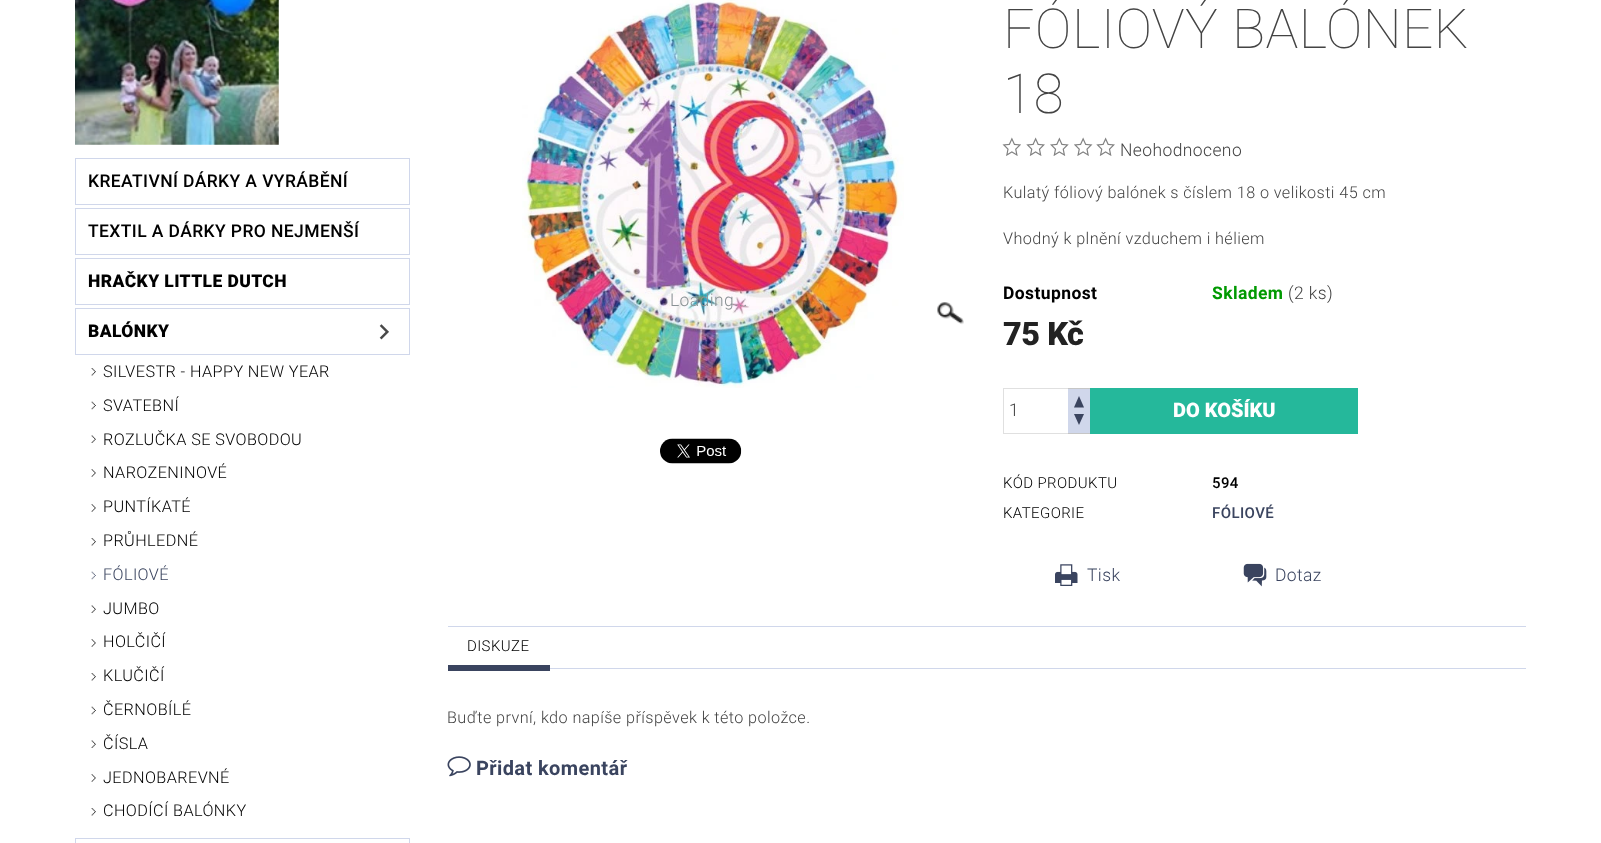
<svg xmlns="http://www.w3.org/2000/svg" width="1601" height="843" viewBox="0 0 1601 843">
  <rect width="100%" height="100%" fill="#ffffff"/>
  <image x="75" y="0" width="204" height="145" href="img1.png"/>
  <rect x="75.5" y="158.5" width="334" height="46" fill="none" stroke="#d0d7eb"/>
  <text x="88" y="187" font-family="Roboto" font-size="17.5" font-weight="500" letter-spacing="0.4" fill="#000000">KREATIVNÍ DÁRKY A VYRÁBĚNÍ</text>
  <rect x="75.5" y="208.5" width="334" height="46" fill="none" stroke="#d0d7eb"/>
  <text x="88" y="237" font-family="Roboto" font-size="17.5" font-weight="500" letter-spacing="0.4" fill="#000000">TEXTIL A DÁRKY PRO NEJMENŠÍ</text>
  <rect x="75.5" y="258.5" width="334" height="46" fill="none" stroke="#d0d7eb"/>
  <text x="88" y="287" font-family="Roboto" font-size="17.5" font-weight="900" letter-spacing="0.4" fill="#000000">HRAČKY LITTLE DUTCH</text>
  <rect x="75.5" y="308.5" width="334" height="46" fill="none" stroke="#d0d7eb"/>
  <text x="88" y="337" font-family="Roboto" font-size="17.5" font-weight="900" letter-spacing="0.4" fill="#000000">BALÓNKY</text>
  <image x="379" y="324" width="10" height="16" href="img2.png"/>
  <image x="91" y="368" width="5" height="8" href="img3.png"/>
  <text x="103" y="377" font-family="Roboto" font-size="16.25" font-weight="300" letter-spacing="0.4" fill="#000000">SILVESTR - HAPPY NEW YEAR</text>
  <image x="91" y="401" width="5" height="9" href="img4.png"/>
  <text x="103" y="411" font-family="Roboto" font-size="16.25" font-weight="300" letter-spacing="0.4" fill="#000000">SVATEBNÍ</text>
  <image x="91" y="435" width="5" height="8" href="img5.png"/>
  <text x="103" y="445" font-family="Roboto" font-size="16.25" font-weight="300" letter-spacing="0.4" fill="#000000">ROZLUČKA SE SVOBODOU</text>
  <image x="91" y="469" width="5" height="8" href="img6.png"/>
  <text x="103" y="478" font-family="Roboto" font-size="16.25" font-weight="300" letter-spacing="0.4" fill="#000000">NAROZENINOVÉ</text>
  <image x="91" y="504" width="5" height="8" href="img6.png"/>
  <text x="103" y="512" font-family="Roboto" font-size="16.25" font-weight="300" letter-spacing="0.4" fill="#000000">PUNTÍKATÉ</text>
  <image x="91" y="538" width="5" height="8" href="img3.png"/>
  <text x="103" y="546" font-family="Roboto" font-size="16.25" font-weight="300" letter-spacing="0.4" fill="#000000">PRŮHLEDNÉ</text>
  <image x="91" y="571" width="5" height="9" href="img7.png"/>
  <text x="103" y="580" font-family="Roboto" font-size="16.25" font-weight="300" letter-spacing="0.4" fill="#3a445f">FÓLIOVÉ</text>
  <image x="91" y="605" width="5" height="8" href="img5.png"/>
  <text x="103" y="614" font-family="Roboto" font-size="16.25" font-weight="300" letter-spacing="0.4" fill="#000000">JUMBO</text>
  <image x="91" y="639" width="5" height="8" href="img6.png"/>
  <text x="103" y="647" font-family="Roboto" font-size="16.25" font-weight="300" letter-spacing="0.4" fill="#000000">HOLČIČÍ</text>
  <image x="91" y="673" width="5" height="8" href="img3.png"/>
  <text x="103" y="681" font-family="Roboto" font-size="16.25" font-weight="300" letter-spacing="0.4" fill="#000000">KLUČIČÍ</text>
  <image x="91" y="706" width="5" height="9" href="img4.png"/>
  <text x="103" y="715" font-family="Roboto" font-size="16.25" font-weight="300" letter-spacing="0.4" fill="#000000">ČERNOBÍLÉ</text>
  <image x="91" y="740" width="5" height="8" href="img5.png"/>
  <text x="103" y="749" font-family="Roboto" font-size="16.25" font-weight="300" letter-spacing="0.4" fill="#000000">ČÍSLA</text>
  <image x="91" y="774" width="5" height="8" href="img6.png"/>
  <text x="103" y="783" font-family="Roboto" font-size="16.25" font-weight="300" letter-spacing="0.4" fill="#000000">JEDNOBAREVNÉ</text>
  <image x="91" y="808" width="5" height="8" href="img3.png"/>
  <text x="103" y="816" font-family="Roboto" font-size="16.25" font-weight="300" letter-spacing="0.4" fill="#000000">CHODÍCÍ BALÓNKY</text>
  <rect x="75.5" y="838.5" width="334" height="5" fill="none" stroke="#d0d7eb"/>
  <image x="522" y="0" width="382" height="388" href="img8.png"/>
  <text x="670" y="306" font-family="Roboto" font-size="17.5" font-weight="300" letter-spacing="0.4" fill="#8a9295">Loading...</text>
  <image x="937" y="302" width="27" height="23" href="img9.png"/>
  <image x="660" y="438" width="82" height="26" href="img10.png"/>
  <text x="1003" y="48" font-family="Roboto" font-size="55" font-weight="100" letter-spacing="0.4" fill="#444444">FÓLIOVÝ BALÓNEK</text>
  <text x="1003" y="113" font-family="Roboto" font-size="55" font-weight="100" letter-spacing="0.4" fill="#444444">18</text>
  <image x="1002" y="137" width="19" height="19" href="img11.png"/>
  <image x="1026" y="137" width="19" height="19" href="img12.png"/>
  <image x="1050" y="137" width="19" height="19" href="img13.png"/>
  <image x="1074" y="137" width="19" height="19" href="img14.png"/>
  <image x="1096" y="137" width="19" height="19" href="img12.png"/>
  <text x="1120" y="156" font-family="Roboto" font-size="17.5" font-weight="300" letter-spacing="0.4" fill="#444444">Neohodnoceno</text>
  <text x="1003" y="198" font-family="Roboto" font-size="16.25" font-weight="300" letter-spacing="0.4" fill="#444444">Kulatý fóliový balónek s číslem 18 o velikosti 45 cm</text>
  <text x="1003" y="244" font-family="Roboto" font-size="16.25" font-weight="300" letter-spacing="0.4" fill="#444444">Vhodný k plnění vzduchem i héliem</text>
  <text x="1003" y="299" font-family="Roboto" font-size="17.5" font-weight="bold" letter-spacing="0.4" fill="#000000">Dostupnost</text>
  <text x="1212" y="299" font-family="Roboto" font-size="17.5" font-weight="bold" letter-spacing="0.4" fill="#009901">Skladem</text>
  <text x="1288" y="299" font-family="Roboto" font-size="17.5" font-weight="300" letter-spacing="0.4" fill="#444444">(2 ks)</text>
  <text x="1003" y="345" font-family="Roboto" font-size="32.5" font-weight="900" letter-spacing="-0.5" fill="#222222">75 Kč</text>
  <rect x="1003.5" y="388.5" width="86" height="45" fill="none" stroke="#e0e0e0"/>
  <text x="1009" y="416" font-family="Roboto" font-size="17.5" font-weight="300" fill="#444444">1</text>
  <rect x="1068" y="389" width="22" height="44" fill="#d0d7eb"/>
  <rect x="1068" y="388" width="22" height="1" fill="#c6c6c6"/>
  <path d="M1084 407.5H1074L1079 396Z" fill="#3a445f"/>
  <rect x="1068" y="433" width="22" height="1" fill="#c6c6c6"/>
  <path d="M1074 414H1084L1079 425Z" fill="#3a445f"/>
  <rect x="1090" y="388" width="268" height="46" fill="#25b89b"/>
  <text x="1173" y="417" font-family="Roboto" font-size="20" font-weight="900" fill="#ffffff">DO KOŠÍKU</text>
  <text x="1003" y="488" font-family="Roboto" font-size="15" font-weight="300" letter-spacing="0.4" fill="#000000">KÓD PRODUKTU</text>
  <text x="1212" y="488" font-family="Roboto" font-size="15" font-weight="500" letter-spacing="0.4" fill="#000000">594</text>
  <text x="1003" y="518" font-family="Roboto" font-size="15" font-weight="300" letter-spacing="0.4" fill="#000000">KATEGORIE</text>
  <text x="1212" y="518" font-family="Roboto" font-size="15" font-weight="500" letter-spacing="0.4" fill="#3a445f">FÓLIOVÉ</text>
  <image x="1055" y="564" width="23" height="22" href="img15.png"/>
  <text x="1087" y="581" font-family="Roboto" font-size="17.5" font-weight="300" letter-spacing="0.4" fill="#3a445f">Tisk</text>
  <image x="1243" y="563" width="24" height="24" href="img16.png"/>
  <text x="1275" y="581" font-family="Roboto" font-size="17.5" font-weight="300" letter-spacing="0.4" fill="#3a445f">Dotaz</text>
  <rect x="448" y="626" width="1078" height="1" fill="#d0d7eb"/>
  <rect x="550" y="668" width="976" height="1" fill="#d0d7eb"/>
  <rect x="448" y="665" width="102" height="6" fill="#3a445f"/>
  <text x="467" y="651" font-family="Roboto" font-size="15" font-weight="300" letter-spacing="0.4" fill="#000000">DISKUZE</text>
  <text x="447" y="723" font-family="Roboto" font-size="16.25" font-weight="300" letter-spacing="0.4" fill="#444444">Buďte první, kdo napíše příspěvek k této položce.</text>
  <image x="447" y="756" width="24" height="21" href="img17.png"/>
  <text x="476" y="775" font-family="Roboto" font-size="20" font-weight="bold" letter-spacing="0.4" fill="#3a445f">Přidat komentář</text>
</svg>
